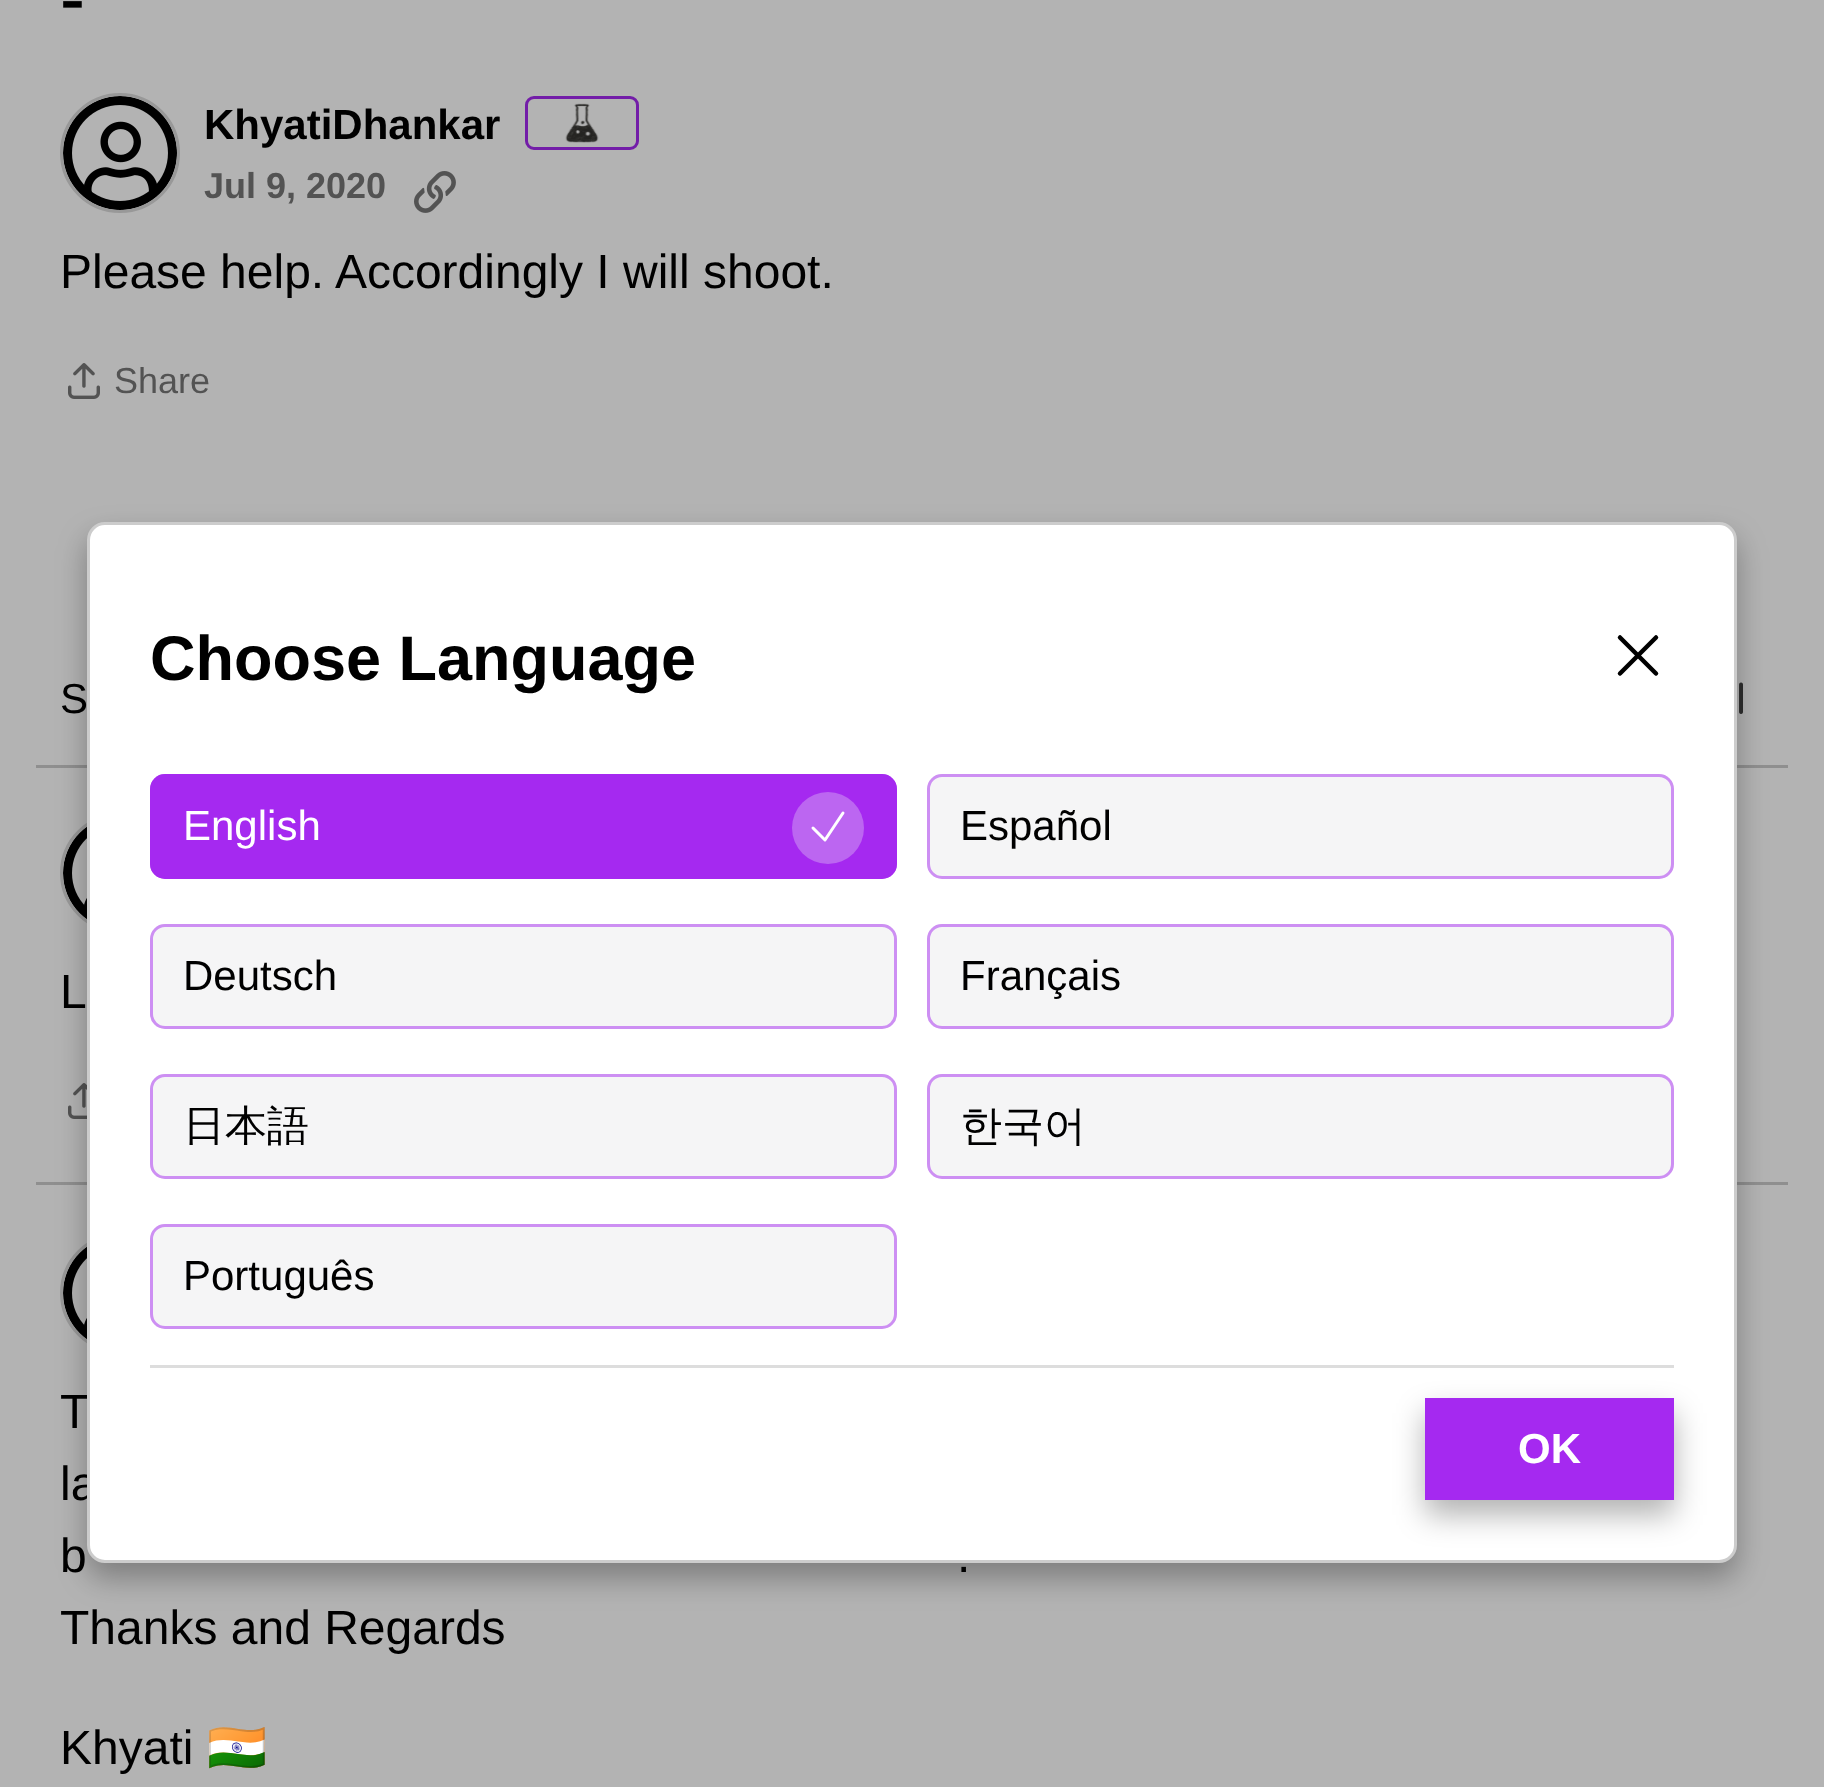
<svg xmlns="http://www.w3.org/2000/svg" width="1824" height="1787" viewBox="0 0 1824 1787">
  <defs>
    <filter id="blur1" x="-50%" y="-200%" width="200%" height="500%"><feGaussianBlur stdDeviation="15"/></filter>
  </defs>
  <rect width="100%" height="100%" fill="#b3b3b3"/>
  <text x="60" y="24" font-family="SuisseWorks" font-size="72" font-weight="bold" fill="#000000">-</text>
  <circle cx="120" cy="153" r="58.5" fill="none" stroke="#989898" stroke-width="3"/>
  <image x="63" y="96" width="114" height="114" href="img1.png"/>
  <text x="204" y="139" font-family="Liberation Sans" font-size="42" font-weight="bold" fill="#000000">KhyatiDhankar</text>
  <rect x="526.5" y="97.5" width="111" height="51" rx="7.5" fill="none" stroke="#731da8" stroke-width="3"/>
  <image x="565" y="103" width="34" height="40" href="img2.png"/>
  <text x="204" y="198" font-family="Liberation Sans" font-size="36" font-weight="bold" fill="#535353">Jul 9, 2020</text>
  <image x="414" y="171" width="42" height="42" href="img3.png"/>
  <text x="60" y="288" font-family="Liberation Sans" font-size="48" fill="#000000">Please help. Accordingly I will shoot.</text>
  <image x="68" y="363" width="32" height="36" href="img4.png"/>
  <text x="114" y="393" font-family="Liberation Sans" font-size="36" fill="#535353">Share</text>
  <text x="60" y="713" font-family="Liberation Sans" font-size="42" fill="#000000">S</text>
  <image x="1739" y="682" width="4" height="32" href="img5.png"/>
  <rect x="36" y="765" width="1752" height="3" fill="#8f8f8f"/>
  <circle cx="120" cy="873" r="58.5" fill="none" stroke="#989898" stroke-width="3"/>
  <image x="63" y="826" width="24" height="94" href="img6.png"/>
  <text x="60" y="1008" font-family="Liberation Sans" font-size="48" fill="#000000">L</text>
  <image x="68" y="1083" width="19" height="36" href="img7.png"/>
  <rect x="36" y="1182" width="1752" height="3" fill="#8f8f8f"/>
  <circle cx="120" cy="1293" r="58.5" fill="none" stroke="#989898" stroke-width="3"/>
  <image x="63" y="1246" width="24" height="94" href="img6.png"/>
  <text x="60" y="1428" font-family="Liberation Sans" font-size="48" fill="#000000">T</text>
  <text x="60" y="1500" font-family="Liberation Sans" font-size="48" fill="#000000">la</text>
  <text x="60" y="1572" font-family="Liberation Sans" font-size="48" fill="#000000">b</text>
  <text x="957" y="1572" font-family="Liberation Sans" font-size="48" fill="#000000">.</text>
  <text x="60" y="1644" font-family="Liberation Sans" font-size="48" fill="#000000">Thanks and Regards</text>
  <text x="60" y="1764" font-family="Liberation Sans" font-size="48" fill="#000000">Khyati</text>
  <text x="207" y="1764" font-family="Noto Color Emoji" font-size="48" fill="#000000">🇮🇳</text>
  <rect x="87" y="537" width="1650" height="1041" rx="18" fill="#000000" fill-opacity="0.3" filter="url(#blur1)"/>
  <rect x="88.5" y="523.5" width="1647" height="1038" rx="16.5" fill="#ffffff" stroke="#cccccc" stroke-width="3"/>
  <text x="150" y="680" font-family="Liberation Sans" font-size="63" font-weight="bold" fill="#000000">Choose Language</text>
  <path d="M1620 673.5L1656 637.5M1620 637.5L1656 673.5" fill="none" stroke="#000000" stroke-width="4.5" stroke-linecap="round" stroke-linejoin="round"/>
  <rect x="150" y="774" width="747" height="105" rx="15" fill="#a529f0"/>
  <rect x="151.5" y="775.5" width="744" height="102" rx="13.5" fill="none" stroke="#a529f0" stroke-opacity="0.5" stroke-width="3"/>
  <text x="183" y="840" font-family="Liberation Sans" font-size="42" fill="#ffffff">English</text>
  <circle cx="828" cy="828" r="36" fill="#bc66f1"/>
  <path d="M813 828L825 840L843 813" fill="none" stroke="#ffffff" stroke-width="3" stroke-linecap="round" stroke-linejoin="round"/>
  <rect x="927" y="774" width="747" height="105" rx="15" fill="#f5f5f6"/>
  <rect x="928.5" y="775.5" width="744" height="102" rx="13.5" fill="none" stroke="#a529f0" stroke-opacity="0.5" stroke-width="3"/>
  <text x="960" y="840" font-family="Liberation Sans" font-size="42" fill="#000000">Español</text>
  <rect x="150" y="924" width="747" height="105" rx="15" fill="#f5f5f6"/>
  <rect x="151.5" y="925.5" width="744" height="102" rx="13.5" fill="none" stroke="#a529f0" stroke-opacity="0.5" stroke-width="3"/>
  <text x="183" y="990" font-family="Liberation Sans" font-size="42" fill="#000000">Deutsch</text>
  <rect x="927" y="924" width="747" height="105" rx="15" fill="#f5f5f6"/>
  <rect x="928.5" y="925.5" width="744" height="102" rx="13.5" fill="none" stroke="#a529f0" stroke-opacity="0.5" stroke-width="3"/>
  <text x="960" y="990" font-family="Liberation Sans" font-size="42" fill="#000000">Français</text>
  <rect x="150" y="1074" width="747" height="105" rx="15" fill="#f5f5f6"/>
  <rect x="151.5" y="1075.5" width="744" height="102" rx="13.5" fill="none" stroke="#a529f0" stroke-opacity="0.5" stroke-width="3"/>
  <text x="183" y="1140" font-family="WenQuanYi Zen Hei" font-size="42" font-weight="500" fill="#000000">日本語</text>
  <rect x="927" y="1074" width="747" height="105" rx="15" fill="#f5f5f6"/>
  <rect x="928.5" y="1075.5" width="744" height="102" rx="13.5" fill="none" stroke="#a529f0" stroke-opacity="0.5" stroke-width="3"/>
  <text x="960" y="1140" font-family="WenQuanYi Zen Hei" font-size="42" font-weight="500" fill="#000000">한국어</text>
  <rect x="150" y="1224" width="747" height="105" rx="15" fill="#f5f5f6"/>
  <rect x="151.5" y="1225.5" width="744" height="102" rx="13.5" fill="none" stroke="#a529f0" stroke-opacity="0.5" stroke-width="3"/>
  <text x="183" y="1290" font-family="Liberation Sans" font-size="42" fill="#000000">Português</text>
  <rect x="150" y="1365" width="1524" height="3" fill="#dddddd"/>
  <rect x="1425" y="1413" width="249" height="102" fill="#000000" fill-opacity="0.3" filter="url(#blur1)"/>
  <rect x="1425" y="1398" width="249" height="102" fill="#a529f0"/>
  <text x="1518" y="1463" font-family="Liberation Sans" font-size="42" font-weight="bold" fill="#ffffff">OK</text>
</svg>
